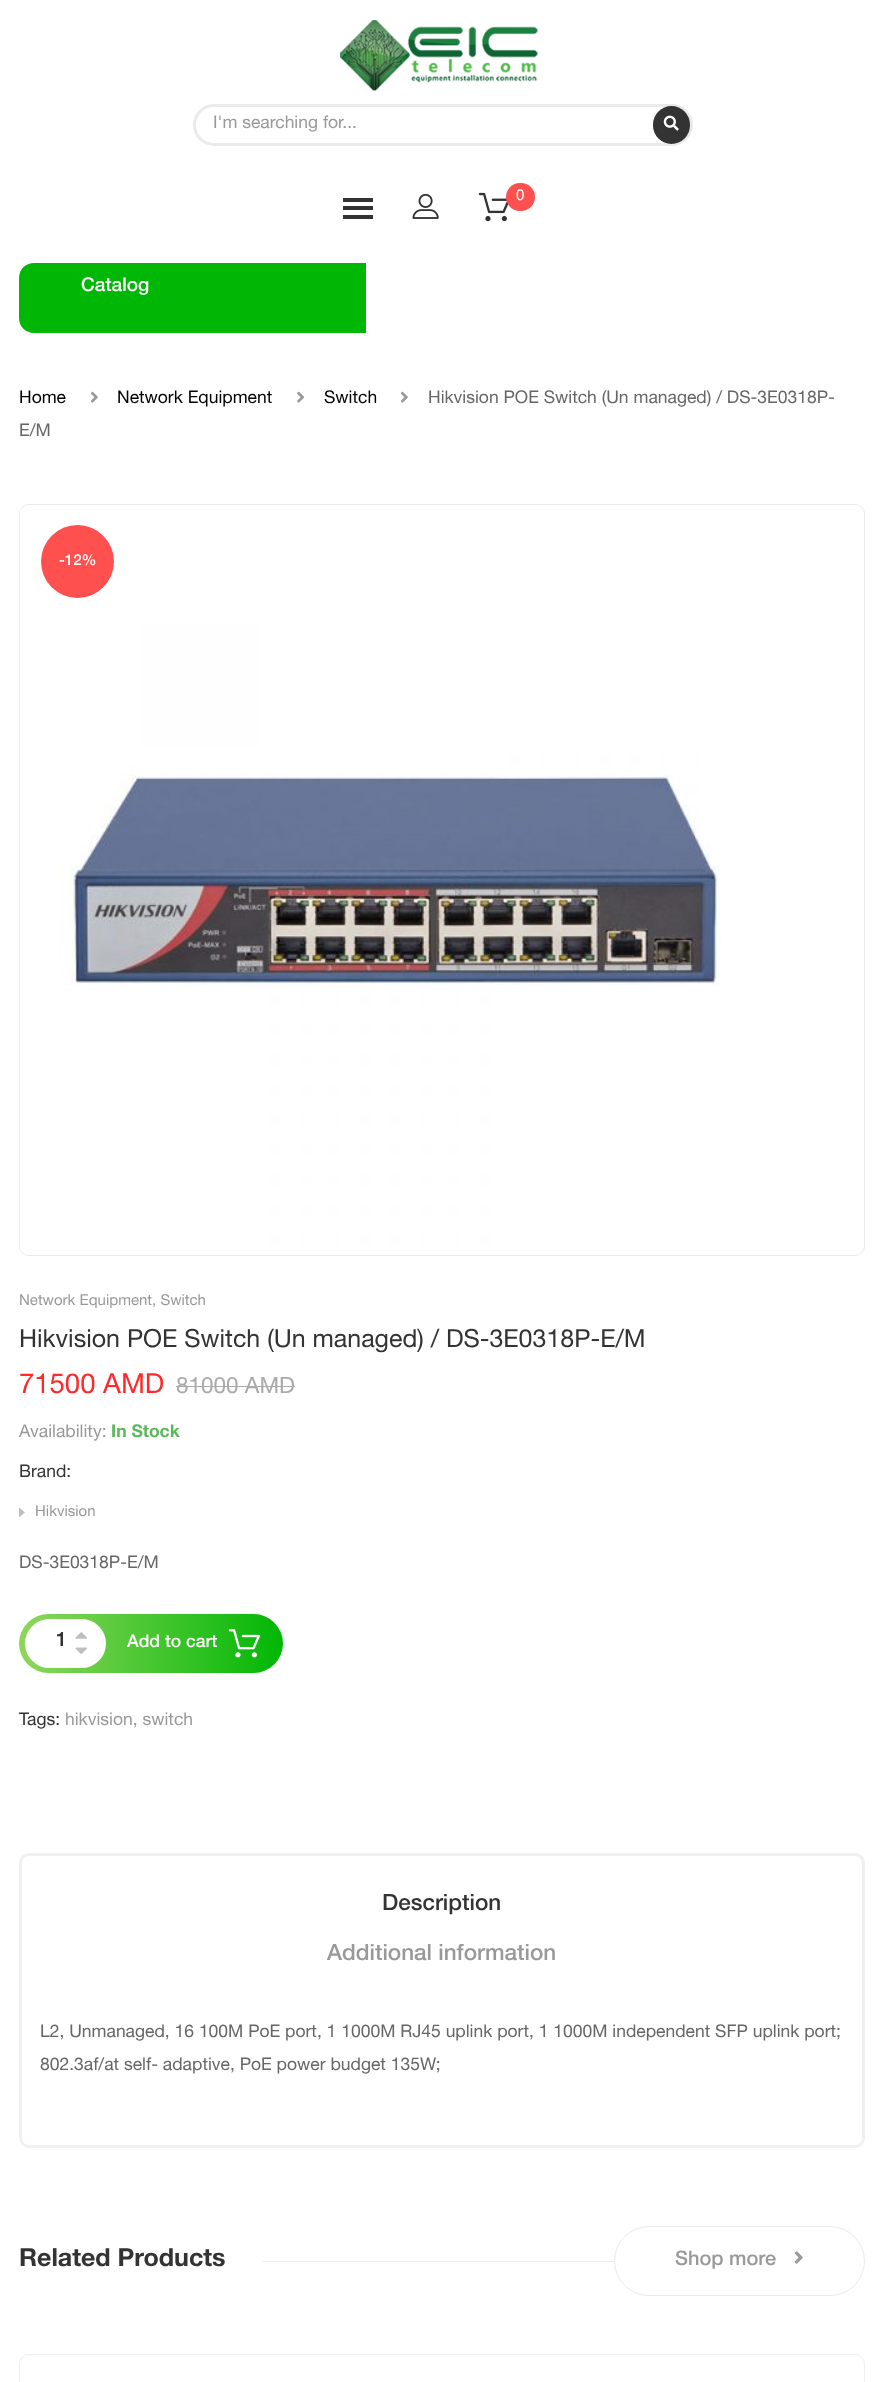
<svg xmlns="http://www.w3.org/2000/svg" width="883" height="2382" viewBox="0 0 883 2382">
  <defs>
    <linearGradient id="g1" gradientUnits="userSpaceOnUse" x1="19" y1="1643" x2="283" y2="1643"><stop offset="0" stop-color="#8ed65c"/><stop offset="1" stop-color="#01b705"/></linearGradient>
  </defs>
  <rect width="100%" height="100%" fill="#ffffff"/>
  <image x="340" y="20" width="198" height="71" href="img1.png"/>
  <rect x="194.5" y="105.5" width="497" height="39" rx="19.5" fill="none" stroke="#eaeaea" stroke-width="3"/>
  <text x="213" y="128" font-family="Helvetica Neue" font-size="17.5" fill="#999999">I'm searching for...</text>
  <rect x="653" y="106" width="37" height="38" rx="18.5" fill="#333333"/>
  <image x="663" y="115" width="16" height="16" href="img2.png"/>
  <rect x="343" y="198" width="30" height="4" fill="#333333"/>
  <rect x="343" y="206" width="30" height="4" fill="#333333"/>
  <rect x="343" y="215" width="30" height="4" fill="#333333"/>
  <image x="412" y="193" width="27" height="26" href="img3.png"/>
  <image x="478" y="192" width="31" height="30" href="img4.png"/>
  <rect x="506" y="183" width="29" height="28" rx="14" fill="#ff5050"/>
  <text x="516" y="200" font-family="Helvetica Neue" font-size="15" fill="#ffffff">0</text>
  <path d="M34 263H366V333H34C25.5 333 19 326.5 19 318V278C19 269.5 25.5 263 34 263Z" fill="#01b705"/>
  <text x="81" y="291" font-family="Helvetica Neue" font-size="19" font-weight="500" fill="#ffffff">Catalog</text>
  <text x="19" y="403" font-family="Helvetica Neue" font-size="17.5" fill="#000000">Home</text>
  <image x="90" y="391" width="8" height="12" href="img5.png"/>
  <text x="117" y="403" font-family="Helvetica Neue" font-size="17.5" fill="#000000">Network Equipment</text>
  <image x="297" y="391" width="8" height="12" href="img6.png"/>
  <text x="324" y="403" font-family="Helvetica Neue" font-size="17.5" fill="#000000">Switch</text>
  <image x="400" y="391" width="8" height="12" href="img5.png"/>
  <text x="428" y="403" font-family="Helvetica Neue" font-size="17.5" fill="#666666">Hikvision POE Switch (Un managed) / DS-3E0318P-</text>
  <text x="19" y="436" font-family="Helvetica Neue" font-size="17.5" fill="#666666">E/M</text>
  <rect x="19.5" y="504.5" width="845" height="751" rx="9.5" fill="none" stroke="#eaeaea"/>
  <image x="20" y="505" width="701" height="750" href="img7.png"/>
  <circle cx="77.5" cy="561.5" r="36.5" fill="#ff5050"/>
  <text x="59" y="565" font-family="Helvetica Neue" font-size="15" font-weight="500" fill="#ffffff">-12%</text>
  <text x="19" y="1305" font-family="Helvetica Neue" font-size="15" fill="#999999">Network Equipment, Switch</text>
  <text x="19" y="1347" font-family="Helvetica Neue" font-size="25" fill="#333333">Hikvision POE Switch (Un managed) / DS-3E0318P-E/M</text>
  <text x="19" y="1393" font-family="Helvetica Neue" font-size="27.5" fill="#ff2929">71500 AMD</text>
  <text x="176" y="1393" font-family="Helvetica Neue" font-size="22.5" fill="#aaaaaa">81000 AMD</text>
  <rect x="176" y="1386" width="119" height="1" fill="#aaaaaa"/>
  <text x="19" y="1437" font-family="Helvetica Neue" font-size="17.5" fill="#999999">Availability:</text>
  <text x="111" y="1437" font-family="Helvetica Neue" font-size="17.5" font-weight="bold" fill="#5cb85c">In Stock</text>
  <text x="19" y="1477" font-family="Helvetica Neue" font-size="17.5" fill="#333333">Brand:</text>
  <path d="M19 1517.5V1507.5L25 1512.5Z" fill="#bfbfbf"/>
  <text x="35" y="1516" font-family="Helvetica Neue" font-size="15" fill="#999999">Hikvision</text>
  <text x="19" y="1568" font-family="Helvetica Neue" font-size="17.5" fill="#666666">DS-3E0318P-E/M</text>
  <rect x="19" y="1614" width="264" height="59" rx="29.5" fill="url(#g1)"/>
  <rect x="25" y="1619" width="81" height="49" rx="24.5" fill="#ffffff"/>
  <text x="56" y="1646" font-family="Helvetica Neue" font-size="20" font-weight="500" fill="#333333">1</text>
  <image x="75" y="1632" width="12" height="7" href="img8.png"/>
  <image x="75" y="1647" width="12" height="7" href="img9.png"/>
  <text x="127" y="1647" font-family="Helvetica Neue" font-size="17.5" font-weight="500" fill="#ffffff">Add to cart</text>
  <image x="228" y="1629" width="32" height="29" href="img10.png"/>
  <text x="19" y="1725" font-family="Helvetica Neue" font-size="17.5" fill="#333333">Tags:</text>
  <text x="65" y="1725" font-family="Helvetica Neue" font-size="17.5" fill="#999999">hikvision, switch</text>
  <rect x="20.5" y="1854.5" width="843" height="292" rx="8.5" fill="none" stroke="#f0f0f0" stroke-width="3"/>
  <text x="382" y="1910" font-family="Helvetica Neue" font-size="22.5" font-weight="500" fill="#333333">Description</text>
  <text x="327" y="1960" font-family="Helvetica Neue" font-size="22.5" font-weight="500" fill="#999999">Additional information</text>
  <text x="40" y="2037" font-family="Helvetica Neue" font-size="17.5" fill="#666666">L2, Unmanaged, 16 100M PoE port, 1 1000M RJ45 uplink port, 1 1000M independent SFP uplink port;</text>
  <text x="40" y="2070" font-family="Helvetica Neue" font-size="17.5" fill="#666666">802.3af/at self- adaptive, PoE power budget 135W;</text>
  <text x="19" y="2266" font-family="Helvetica Neue" font-size="25" font-weight="bold" fill="#333333">Related Products</text>
  <rect x="263" y="2261" width="602" height="1" fill="#ededed"/>
  <rect x="614.5" y="2226.5" width="250" height="69" rx="34.5" fill="#ffffff" stroke="#eaeaea"/>
  <text x="675" y="2265" font-family="Helvetica Neue" font-size="20" font-weight="500" fill="#999999">Shop more</text>
  <image x="794" y="2251" width="9" height="13" href="img11.png"/>
  <rect x="19.5" y="2354.5" width="845" height="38" rx="9.5" fill="none" stroke="#f0f0f0"/>
</svg>
